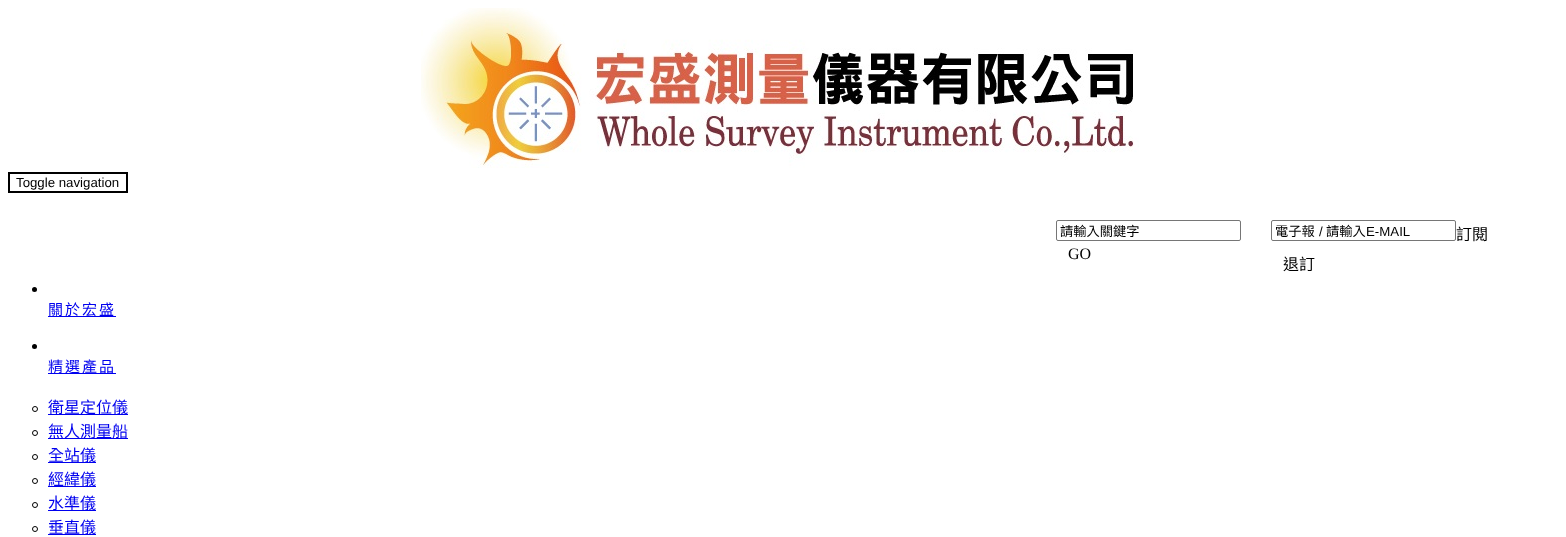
<svg xmlns="http://www.w3.org/2000/svg" width="1566" height="537" viewBox="0 0 1566 537">
  <rect width="100%" height="100%" fill="#ffffff"/>
  <image x="421" y="8" width="718" height="160" href="img1.png"/>
  <rect x="9" y="173" width="118" height="19" fill="none" stroke="#000000" stroke-width="2"/>
  <text x="16" y="187" font-family="Liberation Sans" font-size="13.25" fill="#000000">Toggle navigation</text>
  <rect x="1056.5" y="220.5" width="184" height="20" rx="1.5" fill="none" stroke="#767676"/>
  <text x="1060" y="236" font-family="Noto Sans CJK TC" font-size="13.25" fill="#000000">請輸入關鍵字</text>
  <text x="1068" y="259" font-family="Liberation Serif" font-size="16" fill="#000000">GO</text>
  <rect x="1271.5" y="220.5" width="184" height="20" rx="1.5" fill="none" stroke="#767676"/>
  <text x="1275" y="236" font-family="Noto Sans CJK TC" font-size="13.25" fill="#000000">電子報</text>
  <text x="1319" y="236" font-family="Liberation Sans" font-size="13.25" fill="#000000">/</text>
  <text x="1326" y="236" font-family="Noto Sans CJK TC" font-size="13.25" fill="#000000">請輸入</text>
  <text x="1366" y="236" font-family="Liberation Sans" font-size="13.25" fill="#000000">E-MAIL</text>
  <text x="1456" y="240" font-family="Noto Sans CJK TC" font-size="16" fill="#000000">訂閱</text>
  <text x="1283" y="270" font-family="Noto Sans CJK TC" font-size="16" fill="#000000">退訂</text>
  <circle cx="34.5" cy="289.5" r="2.5" fill="#000000"/>
  <rect x="48" y="316" width="68" height="1" fill="#0000ee"/>
  <text x="48" y="315" font-family="Noto Sans CJK TC" font-size="15" letter-spacing="2" fill="#0000ee">關於宏盛</text>
  <circle cx="34.5" cy="346.5" r="2.5" fill="#000000"/>
  <rect x="48" y="373" width="68" height="1" fill="#0000ee"/>
  <text x="48" y="372" font-family="Noto Sans CJK TC" font-size="15" letter-spacing="2" fill="#0000ee">精選產品</text>
  <circle cx="35" cy="409" r="2.5" fill="none" stroke="#000000"/>
  <rect x="48" y="414" width="80" height="1" fill="#0000ee"/>
  <text x="48" y="413" font-family="Noto Sans CJK TC" font-size="16" fill="#0000ee">衛星定位儀</text>
  <circle cx="35" cy="433" r="2.5" fill="none" stroke="#000000"/>
  <rect x="48" y="438" width="80" height="1" fill="#0000ee"/>
  <text x="48" y="437" font-family="Noto Sans CJK TC" font-size="16" fill="#0000ee">無人測量船</text>
  <circle cx="35" cy="457" r="2.5" fill="none" stroke="#000000"/>
  <rect x="48" y="462" width="48" height="1" fill="#0000ee"/>
  <text x="48" y="461" font-family="Noto Sans CJK TC" font-size="16" fill="#0000ee">全站儀</text>
  <circle cx="35" cy="481" r="2.5" fill="none" stroke="#000000"/>
  <rect x="48" y="486" width="48" height="1" fill="#0000ee"/>
  <text x="48" y="485" font-family="Noto Sans CJK TC" font-size="16" fill="#0000ee">經緯儀</text>
  <circle cx="35" cy="505" r="2.5" fill="none" stroke="#000000"/>
  <rect x="48" y="510" width="48" height="1" fill="#0000ee"/>
  <text x="48" y="509" font-family="Noto Sans CJK TC" font-size="16" fill="#0000ee">水準儀</text>
  <circle cx="35" cy="529" r="2.5" fill="none" stroke="#000000"/>
  <rect x="48" y="534" width="48" height="1" fill="#0000ee"/>
  <text x="48" y="533" font-family="Noto Sans CJK TC" font-size="16" fill="#0000ee">垂直儀</text>
</svg>
